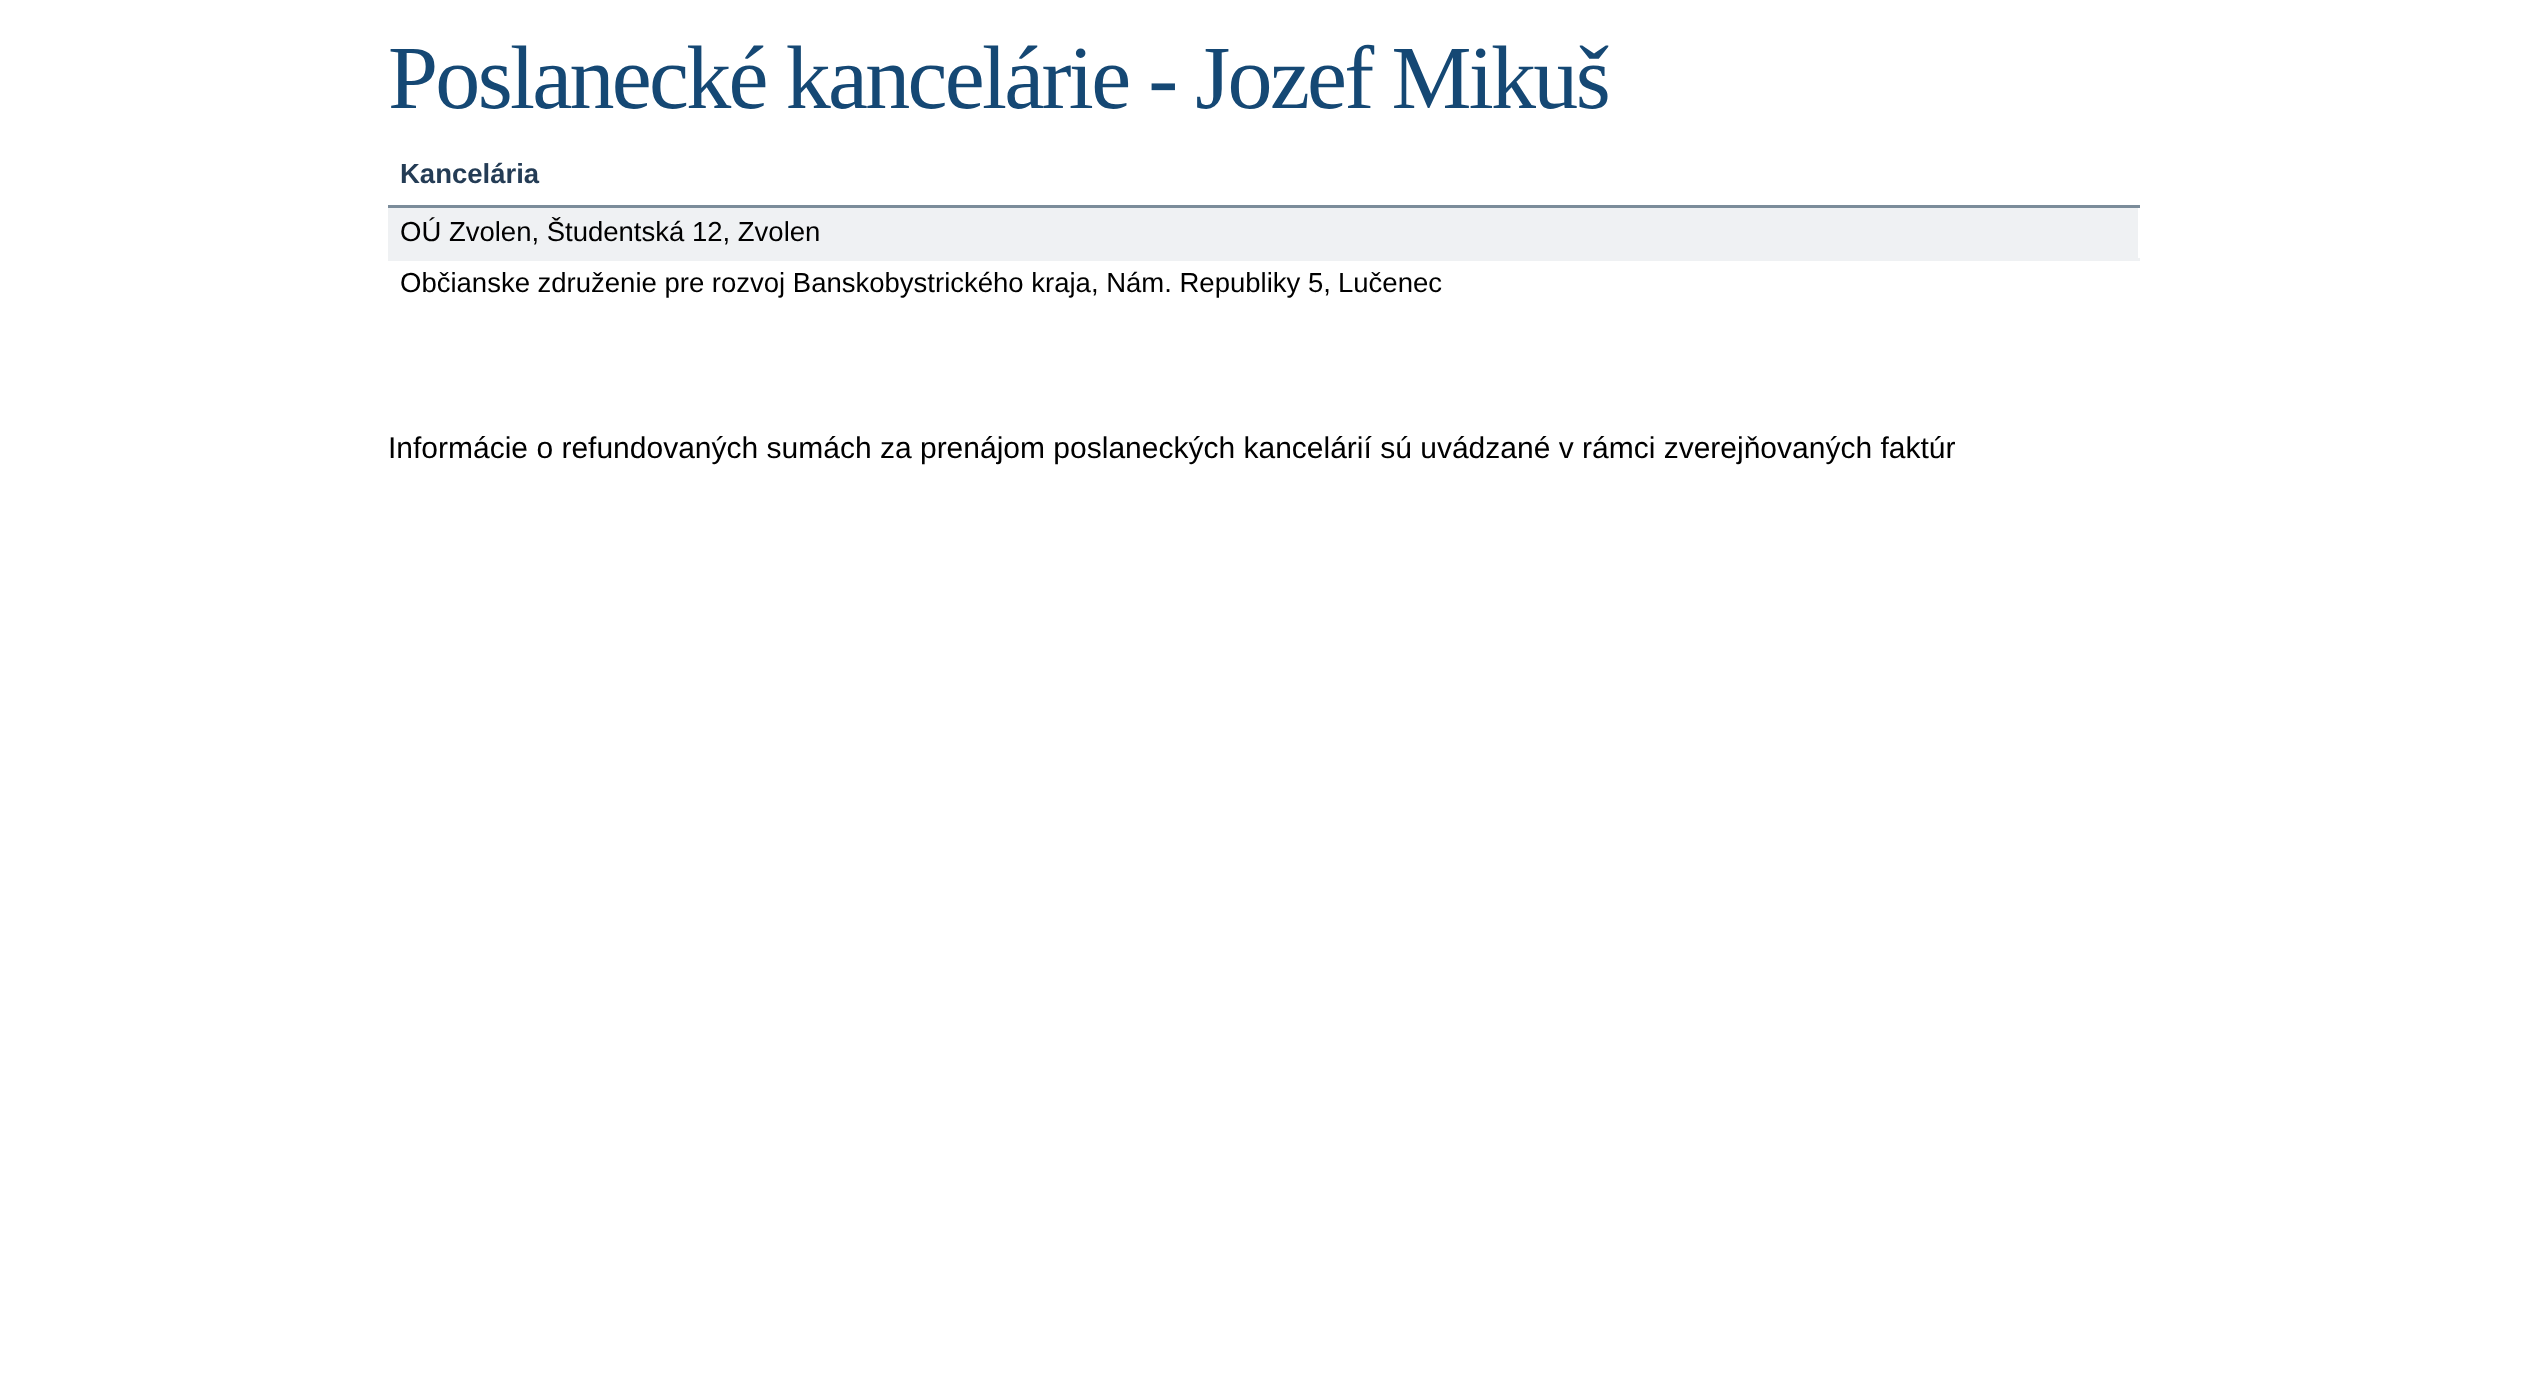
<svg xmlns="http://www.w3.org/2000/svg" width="2524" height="1388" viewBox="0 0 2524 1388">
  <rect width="100%" height="100%" fill="#ffffff"/>
  <text x="388" y="108" font-family="Liberation Serif" font-size="90" letter-spacing="-2.7" fill="#154874">Poslanecké kancelárie - Jozef Mikuš</text>
  <rect x="388" y="205" width="1752" height="3" fill="#7b8c9a"/>
  <text x="400" y="183" font-family="Liberation Sans" font-size="27.5" font-weight="bold" fill="#243c55">Kancelária</text>
  <rect x="388" y="208" width="1750" height="50" fill="#eff1f3"/>
  <text x="400" y="241" font-family="Liberation Sans" font-size="27.5" fill="#000000">OÚ Zvolen, Študentská 12, Zvolen</text>
  <rect x="388" y="258" width="1752" height="3" fill="#eff1f3"/>
  <text x="400" y="292" font-family="Liberation Sans" font-size="27.5" fill="#000000">Občianske združenie pre rozvoj Banskobystrického kraja, Nám. Republiky 5,</text>
  <text x="1338" y="292" font-family="Liberation Sans" font-size="27.5" fill="#000000">Lučenec</text>
  <text x="388" y="458" font-family="Liberation Sans" font-size="30" fill="#000000">Informácie o refundovaných sumách za prenájom poslaneckých kancelárií sú uvádzané v rámci zverejňovaných faktúr</text>
</svg>
